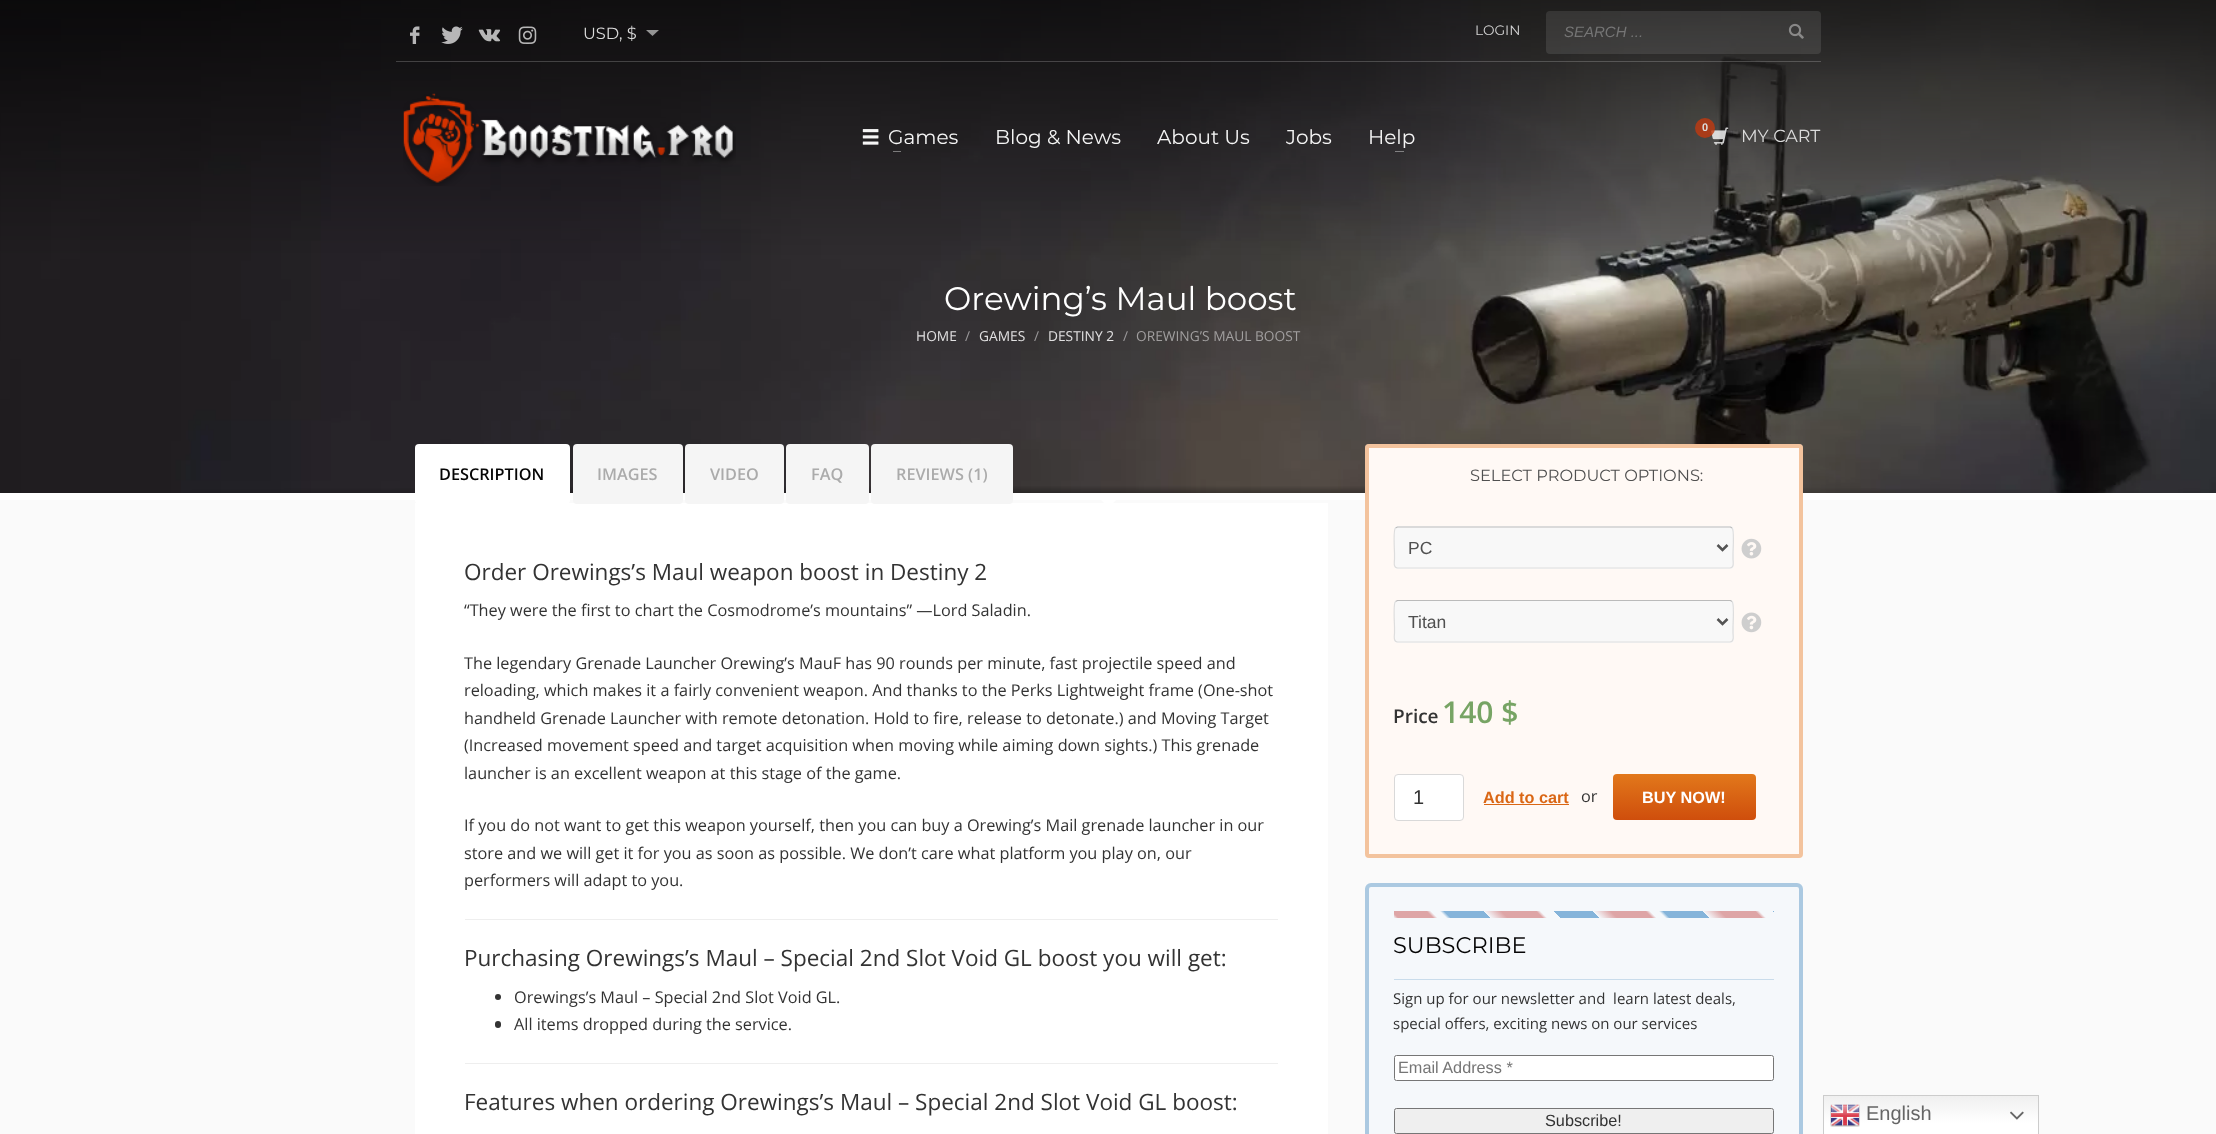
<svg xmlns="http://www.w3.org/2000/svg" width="2216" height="1134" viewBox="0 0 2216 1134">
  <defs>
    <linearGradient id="g1" gradientUnits="userSpaceOnUse" x1="1684" y1="774" x2="1684" y2="820"><stop offset="0" stop-color="#e2781b"/><stop offset="1" stop-color="#cf4e0c"/></linearGradient>
    <linearGradient id="g2" gradientUnits="userSpaceOnUse" x1="1487" y1="1011" x2="1706" y2="792"><stop offset="0" stop-color="#f5f8fb"/><stop offset="0.01" stop-color="#dea5a6"/><stop offset="0.09" stop-color="#dea5a6"/><stop offset="0.1" stop-color="#f5f8fb"/><stop offset="0.12" stop-color="#f5f8fb"/><stop offset="0.13" stop-color="#85b4da"/><stop offset="0.22" stop-color="#85b4da"/><stop offset="0.22" stop-color="#f5f8fb"/><stop offset="0.26" stop-color="#dea5a6"/><stop offset="0.34" stop-color="#dea5a6"/><stop offset="0.35" stop-color="#f5f8fb"/><stop offset="0.38" stop-color="#f5f8fb"/><stop offset="0.38" stop-color="#85b4da"/><stop offset="0.47" stop-color="#85b4da"/><stop offset="0.47" stop-color="#f5f8fb"/><stop offset="0.51" stop-color="#dea5a6"/><stop offset="0.59" stop-color="#dea5a6"/><stop offset="0.6" stop-color="#f5f8fb"/><stop offset="0.62" stop-color="#f5f8fb"/><stop offset="0.63" stop-color="#85b4da"/><stop offset="0.72" stop-color="#85b4da"/><stop offset="0.72" stop-color="#f5f8fb"/><stop offset="0.76" stop-color="#dea5a6"/><stop offset="0.84" stop-color="#dea5a6"/><stop offset="0.85" stop-color="#f5f8fb"/><stop offset="0.88" stop-color="#f5f8fb"/><stop offset="0.88" stop-color="#85b4da"/><stop offset="0.97" stop-color="#85b4da"/><stop offset="0.97" stop-color="#f5f8fb"/><stop offset="1" stop-color="#f5f8fb"/></linearGradient>
    <linearGradient id="g3" gradientUnits="userSpaceOnUse" x1="1931" y1="1095" x2="1931" y2="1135"><stop offset="0" stop-color="#efefef"/><stop offset="0.7" stop-color="#ffffff"/></linearGradient>
  </defs>
  <rect width="100%" height="100%" fill="#fafafa"/>
  <image x="0" y="0" width="2216" height="493" href="img9.png"/>
  <image x="410" y="26" width="10" height="18" href="img1.png"/>
  <image x="441" y="26" width="22" height="18" href="img2.png"/>
  <image x="478" y="29" width="23" height="13" href="img3.png"/>
  <image x="518" y="26" width="19" height="18" href="img4.png"/>
  <text x="583" y="39" font-family="Montserrat" font-size="16.25" fill="#dbdbdb">USD, $</text>
  <path d="M646 30H659L652.5 36Z" fill="#949494"/>
  <text x="1475" y="35" font-family="Montserrat" font-size="13.75" fill="#d3d3d3">LOGIN</text>
  <rect x="1546" y="11" width="275" height="43" rx="4" fill="#ffffff" fill-opacity="0.1"/>
  <text x="1564" y="37" font-family="Liberation Sans" font-size="15" font-style="italic" fill="#757575">SEARCH ...</text>
  <image x="1788" y="23" width="16" height="16" href="img5.png"/>
  <rect x="396" y="61" width="1425" height="1" fill="#ffffff" fill-opacity="0.2"/>
  <image x="403" y="93" width="333" height="93" href="img6.png"/>
  <image x="862" y="129" width="17" height="16" href="img7.png"/>
  <text x="888" y="144" font-family="Montserrat" font-size="20" fill="#f5f5f5">Games</text>
  <rect x="893" y="151" width="8" height="1" fill="#7b7a7b"/>
  <text x="995" y="144" font-family="Montserrat" font-size="20" fill="#f5f5f5">Blog &amp; News</text>
  <text x="1157" y="144" font-family="Montserrat" font-size="20" fill="#f5f5f5">About Us</text>
  <text x="1286" y="144" font-family="Montserrat" font-size="20" fill="#f5f5f5">Jobs</text>
  <text x="1368" y="144" font-family="Montserrat" font-size="20" fill="#f5f5f5">Help</text>
  <rect x="1395" y="151" width="9" height="1" fill="#828183"/>
  <image x="1711" y="127" width="18" height="18" href="img8.png"/>
  <circle cx="1705" cy="128" r="10" fill="#c2390f" fill-opacity="0.8"/>
  <text x="1702" y="131" font-family="Liberation Sans" font-size="11" font-weight="bold" fill="#dbdbdb">0</text>
  <text x="1741" y="142" font-family="Montserrat" font-size="17.5" fill="#dbdbdb">MY CART</text>
  <text x="944" y="310" font-family="Montserrat" font-size="32.5" fill="#ffffff">Orewing’s Maul boost</text>
  <text x="916" y="341" font-family="Open Sans" font-size="13.75" fill="#e1e0e1">HOME</text>
  <text x="965" y="341" font-family="Open Sans" font-size="13.75" fill="#9a989a">/</text>
  <text x="979" y="341" font-family="Open Sans" font-size="13.75" fill="#e1e0e1">GAMES</text>
  <text x="1034" y="341" font-family="Open Sans" font-size="13.75" fill="#9a989a">/</text>
  <text x="1048" y="341" font-family="Open Sans" font-size="13.75" fill="#e1e0e1">DESTINY 2</text>
  <text x="1123" y="341" font-family="Open Sans" font-size="13.75" fill="#9a989a">/</text>
  <text x="1136" y="341" font-family="Open Sans" font-size="13.75" fill="#a19f9f">OREWING’S MAUL BOOST</text>
  <rect x="0" y="493" width="2216" height="7" fill="#ffffff"/>
  <path d="M1101 500H1116L1109 507.5Z" fill="#ffffff"/>
  <rect x="415" y="503" width="913" height="631" fill="#ffffff"/>
  <rect x="415" y="444" width="155" height="60" rx="4" fill="#ffffff"/>
  <text x="439" y="480" font-family="Open Sans" font-size="16.25" font-weight="600" fill="#050505">DESCRIPTION</text>
  <rect x="573" y="444" width="110" height="60" rx="4" fill="#f5f5f5"/>
  <text x="597" y="480" font-family="Open Sans" font-size="16.25" font-weight="600" fill="#ababab">IMAGES</text>
  <rect x="685" y="444" width="99" height="60" rx="4" fill="#f5f5f5"/>
  <text x="710" y="480" font-family="Open Sans" font-size="16.25" font-weight="600" fill="#ababab">VIDEO</text>
  <rect x="786" y="444" width="83" height="60" rx="4" fill="#f5f5f5"/>
  <text x="811" y="480" font-family="Open Sans" font-size="16.25" font-weight="600" fill="#ababab">FAQ</text>
  <rect x="871" y="444" width="142" height="60" rx="4" fill="#f5f5f5"/>
  <text x="896" y="480" font-family="Open Sans" font-size="16.25" font-weight="600" fill="#ababab">REVIEWS (1)</text>
  <text x="464" y="580" font-family="Open Sans" font-size="22.5" fill="#333333">Order Orewings’s Maul weapon boost in Destiny 2</text>
  <text x="464" y="616" font-family="Open Sans" font-size="16.25" fill="#333333">“They were the first to chart the Cosmodrome’s mountains” —Lord Saladin.</text>
  <text x="464" y="669" font-family="Open Sans" font-size="16.25" fill="#333333">The legendary Grenade Launcher Orewing’s MauF has 90 rounds per minute, fast projectile speed and</text>
  <text x="464" y="696" font-family="Open Sans" font-size="16.25" fill="#333333">reloading, which makes it a fairly convenient weapon. And thanks to the Perks Lightweight frame (One-shot</text>
  <text x="464" y="724" font-family="Open Sans" font-size="16.25" fill="#333333">handheld Grenade Launcher with remote detonation. Hold to fire, release to detonate.) and Moving Target</text>
  <text x="464" y="751" font-family="Open Sans" font-size="16.25" fill="#333333">(Increased movement speed and target acquisition when moving while aiming down sights.) This grenade</text>
  <text x="464" y="779" font-family="Open Sans" font-size="16.25" fill="#333333">launcher is an excellent weapon at this stage of the game.</text>
  <text x="464" y="831" font-family="Open Sans" font-size="16.25" fill="#333333">If you do not want to get this weapon yourself, then you can buy a Orewing’s Mail grenade launcher in our</text>
  <text x="464" y="859" font-family="Open Sans" font-size="16.25" fill="#333333">store and we will get it for you as soon as possible. We don’t care what platform you play on, our</text>
  <text x="464" y="886" font-family="Open Sans" font-size="16.25" fill="#333333">performers will adapt to you.</text>
  <rect x="465" y="919" width="813" height="1" fill="#eeeeee"/>
  <text x="464" y="966" font-family="Open Sans" font-size="22.5" fill="#333333">Purchasing Orewings’s Maul – Special 2nd Slot Void GL boost you will get:</text>
  <circle cx="498" cy="997" r="3" fill="#333333"/>
  <text x="514" y="1003" font-family="Open Sans" font-size="16.25" fill="#333333">Orewings’s Maul – Special 2nd Slot Void GL.</text>
  <rect x="495" y="1021" width="6" height="7" rx="3" fill="#333333"/>
  <text x="514" y="1030" font-family="Open Sans" font-size="16.25" fill="#333333">All items dropped during the service.</text>
  <rect x="465" y="1063" width="813" height="1" fill="#eeeeee"/>
  <text x="464" y="1110" font-family="Open Sans" font-size="22.5" fill="#333333">Features when ordering Orewings’s Maul – Special 2nd Slot Void GL boost:</text>
  <rect x="1365" y="444" width="438" height="414" rx="4" fill="#fff9f5"/>
  <rect x="1367" y="446" width="434" height="410" rx="2" fill="none" stroke="#e0741a" stroke-opacity="0.4" stroke-width="4"/>
  <text x="1470" y="481" font-family="Montserrat" font-size="16.25" fill="#505050">SELECT PRODUCT OPTIONS:</text>
  <rect x="1394" y="526" width="340" height="43" rx="4" fill="#f8f8f8"/>
  <path d="M1395.5 528L1397.5 527H1730.5L1732 528" fill="none" stroke="#bbbbbb" stroke-width="1.2"/>
  <path d="M1732 528C1734.5 530 1733 549.5 1733 553.5V559C1733 561.5 1734.5 568 1730 568H1397.5C1393 568 1394.5 561.5 1394.5 559V553.5C1394.5 549.5 1393 530 1395.5 528" fill="none" stroke="#dddddd" stroke-width="1.2"/>
  <path d="M1717.5 545L1722.5 550L1727.5 545" fill="none" stroke="#545454" stroke-width="2.5"/>
  <text x="1408" y="554" font-family="Liberation Sans" font-size="17.5" fill="#505050">PC</text>
  <image x="1741" y="538" width="21" height="21" href="img10.png"/>
  <rect x="1394" y="600" width="340" height="43" rx="4" fill="#f8f8f8"/>
  <path d="M1395.5 601.5L1397.5 600.5H1730.5L1732 601.5" fill="none" stroke="#bbbbbb" stroke-width="1.2"/>
  <path d="M1732 601.5C1734.5 603.5 1733 623 1733 627V633C1733 635 1734.5 642 1730 642H1397.5C1393 642 1394.5 635 1394.5 633V627C1394.5 623 1393 603.5 1395.5 601.5" fill="none" stroke="#dddddd" stroke-width="1.2"/>
  <path d="M1717.5 619L1722.5 624L1727.5 619" fill="none" stroke="#545454" stroke-width="2.5"/>
  <text x="1408" y="628" font-family="Liberation Sans" font-size="17.5" fill="#505050">Titan</text>
  <image x="1741" y="612" width="21" height="21" href="img11.png"/>
  <text x="1393" y="723" font-family="Open Sans" font-size="19" font-weight="600" fill="#333333">Price</text>
  <text x="1442" y="723" font-family="Open Sans" font-size="30" font-weight="600" fill="#77a464">140 $</text>
  <rect x="1394.5" y="774.5" width="69" height="46" rx="3.5" fill="#ffffff" stroke="#d9d9d9"/>
  <text x="1413" y="804" font-family="Liberation Sans" font-size="20" fill="#333333">1</text>
  <text x="1483" y="803" font-family="Liberation Sans" font-size="16.25" font-weight="bold" fill="#da6715">Add to cart</text>
  <rect x="1484" y="804" width="85" height="1" fill="#da6715"/>
  <text x="1581" y="802" font-family="Open Sans" font-size="16.25" fill="#333333">or</text>
  <rect x="1613" y="774" width="143" height="46" rx="4" fill="url(#g1)"/>
  <text x="1642" y="803" font-family="Liberation Sans" font-size="16.25" font-weight="bold" fill="#ffffff">BUY NOW!</text>
  <rect x="1367" y="885" width="434" height="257" rx="4" fill="#f5f8fb" stroke="#abc9e1" stroke-width="4"/>
  <rect x="1394" y="911" width="380" height="7" fill="url(#g2)"/>
  <text x="1393" y="953" font-family="Montserrat" font-size="22.5" fill="#050505">SUBSCRIBE</text>
  <rect x="1394" y="979" width="380" height="1" fill="#c9dceb"/>
  <text x="1393" y="1004" font-family="Open Sans" font-size="15" fill="#333333" xml:space="preserve">Sign up for our newsletter and  learn latest deals,</text>
  <text x="1393" y="1029" font-family="Open Sans" font-size="15" fill="#333333">special offers, exciting news on our services</text>
  <rect x="1394.5" y="1055.5" width="379" height="25" rx="2" fill="#ffffff" stroke="#767676"/>
  <text x="1398" y="1073" font-family="Liberation Sans" font-size="16.25" fill="#757575">Email Address *</text>
  <rect x="1394.5" y="1108.5" width="379" height="25" rx="2" fill="#efefef" stroke="#767676"/>
  <text x="1545" y="1126" font-family="Liberation Sans" font-size="16.25" fill="#333333">Subscribe!</text>
  <rect x="1824" y="1096" width="214" height="38" fill="url(#g3)"/>
  <rect x="1823.5" y="1095.5" width="215" height="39" fill="none" stroke="#cccccc"/>
  <image x="1830" y="1104" width="30" height="23" href="img12.png"/>
  <text x="1866" y="1120" font-family="Liberation Sans" font-size="20" fill="#666666">English</text>
  <image x="2010" y="1111" width="14" height="9" href="img13.png"/>
</svg>
